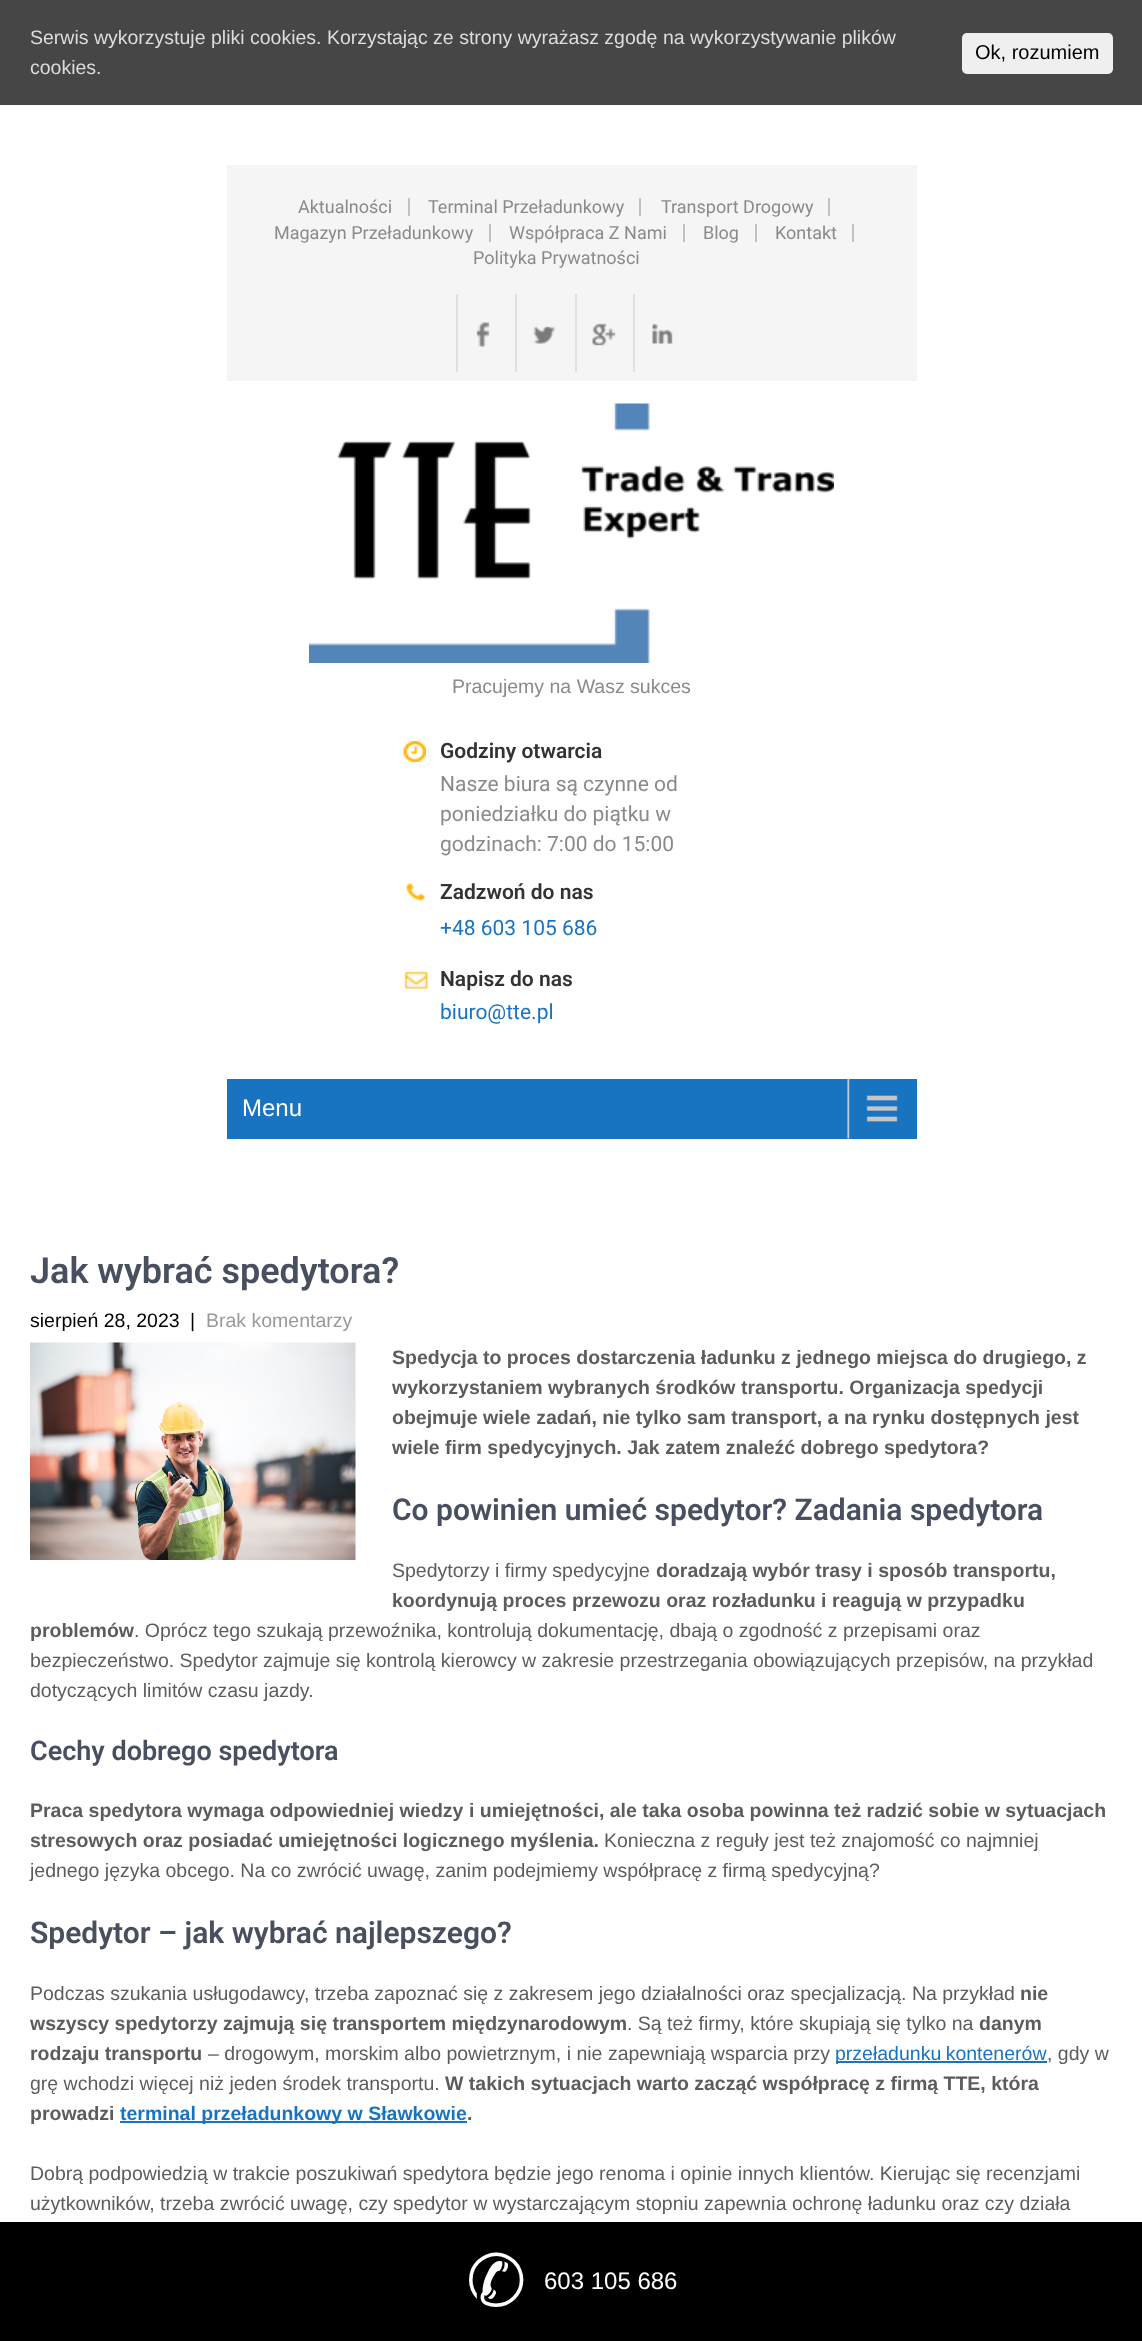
<svg xmlns="http://www.w3.org/2000/svg" width="1142" height="2341" viewBox="0 0 1142 2341">
  <rect width="100%" height="100%" fill="#ffffff"/>
  <rect x="0" y="0" width="1142" height="105" fill="#464646"/>
  <text x="30" y="44" font-family="Liberation Sans" font-size="19.5" fill="#dddddd">Serwis wykorzystuje pliki cookies. Korzystając ze strony wyrażasz zgodę na wykorzystywanie plików</text>
  <text x="30" y="74" font-family="Liberation Sans" font-size="19.5" fill="#dddddd">cookies.</text>
  <rect x="962" y="33" width="151" height="41" rx="5" fill="#efefef"/>
  <text x="975" y="59" font-family="Liberation Sans" font-size="20" fill="#000000">Ok, rozumiem</text>
  <rect x="227" y="165" width="690" height="216" fill="#f5f5f5"/>
  <rect x="408" y="198" width="2" height="18" fill="#c1c1c1"/>
  <text x="298" y="213" font-family="Roboto" font-size="18" fill="#8a8a8a">Aktualności</text>
  <rect x="639" y="198" width="2" height="18" fill="#c1c1c1"/>
  <text x="428" y="213" font-family="Roboto" font-size="18" fill="#8a8a8a">Terminal Przeładunkowy</text>
  <rect x="828" y="198" width="2" height="18" fill="#c1c1c1"/>
  <text x="661" y="213" font-family="Roboto" font-size="18" fill="#8a8a8a">Transport Drogowy</text>
  <rect x="489" y="224" width="2" height="18" fill="#c1c1c1"/>
  <text x="274" y="239" font-family="Roboto" font-size="18" fill="#8a8a8a">Magazyn Przeładunkowy</text>
  <rect x="683" y="224" width="2" height="18" fill="#c1c1c1"/>
  <text x="509" y="239" font-family="Roboto" font-size="18" fill="#8a8a8a">Współpraca Z Nami</text>
  <rect x="755" y="224" width="2" height="18" fill="#c1c1c1"/>
  <text x="703" y="239" font-family="Roboto" font-size="18" fill="#8a8a8a">Blog</text>
  <rect x="852" y="224" width="2" height="18" fill="#c1c1c1"/>
  <text x="775" y="239" font-family="Roboto" font-size="18" fill="#8a8a8a">Kontakt</text>
  <text x="473" y="264" font-family="Roboto" font-size="18" fill="#8a8a8a">Polityka Prywatności</text>
  <image x="476" y="322" width="14" height="25" href="img1.png"/>
  <rect x="456" y="294" width="2" height="78" fill="#e0e0e0"/>
  <image x="533" y="326" width="23" height="18" href="img2.png"/>
  <rect x="515" y="294" width="2" height="78" fill="#e0e0e0"/>
  <image x="592" y="323" width="24" height="23" href="img3.png"/>
  <rect x="575" y="294" width="2" height="78" fill="#e0e0e0"/>
  <image x="652" y="323" width="21" height="21" href="img4.png"/>
  <rect x="633" y="294" width="2" height="78" fill="#e0e0e0"/>
  <image x="309" y="403" width="525" height="260" href="img5.png"/>
  <text x="452" y="693" font-family="Liberation Sans" font-size="19.5" fill="#8a8a8a">Pracujemy na Wasz sukces</text>
  <image x="403" y="741" width="23" height="21" href="img6.png"/>
  <text x="440" y="758" font-family="Roboto" font-size="21" font-weight="600" fill="#333333">Godziny otwarcia</text>
  <text x="440" y="791" font-family="Roboto" font-size="21" fill="#8a8a8a">Nasze biura są czynne od</text>
  <text x="440" y="821" font-family="Roboto" font-size="21" fill="#8a8a8a">poniedziałku do piątku w</text>
  <text x="440" y="851" font-family="Roboto" font-size="21" fill="#8a8a8a">godzinach: 7:00 do 15:00</text>
  <image x="406" y="883" width="19" height="18" href="img7.png"/>
  <text x="440" y="899" font-family="Roboto" font-size="21" font-weight="600" fill="#333333">Zadzwoń do nas</text>
  <text x="440" y="935" font-family="Roboto" font-size="21" fill="#1874c1">+48 603 105 686</text>
  <image x="404" y="971" width="24" height="18" href="img8.png"/>
  <text x="440" y="986" font-family="Roboto" font-size="21" font-weight="600" fill="#333333">Napisz do nas</text>
  <text x="440" y="1019" font-family="Roboto" font-size="21" fill="#1874c1">biuro@tte.pl</text>
  <rect x="227" y="1079" width="690" height="60" fill="#1874c1"/>
  <image x="847" y="1078" width="51" height="61" href="img9.png"/>
  <text x="242" y="1116" font-family="Liberation Sans" font-size="24" fill="#ffffff">Menu</text>
  <text x="30" y="1283" font-family="Roboto" font-size="36" font-weight="600" fill="#484f5e">Jak wybrać spedytora?</text>
  <text x="30" y="1327" font-family="Liberation Sans" font-size="19.5" fill="#000000">sierpień 28, 2023</text>
  <text x="190" y="1327" font-family="Liberation Sans" font-size="19.5" fill="#000000">|</text>
  <text x="206" y="1327" font-family="Liberation Sans" font-size="19.5" fill="#999999">Brak komentarzy</text>
  <image x="30" y="1342" width="326" height="218" href="img10.png"/>
  <text x="392" y="1364" font-family="Liberation Sans" font-size="19.5" font-weight="bold" fill="#5c5c5c">Spedycja to proces dostarczenia ładunku z jednego miejsca do drugiego, z</text>
  <text x="392" y="1394" font-family="Liberation Sans" font-size="19.5" font-weight="bold" fill="#5c5c5c">wykorzystaniem wybranych środków transportu. Organizacja spedycji</text>
  <text x="392" y="1424" font-family="Liberation Sans" font-size="19.5" font-weight="bold" fill="#5c5c5c">obejmuje wiele zadań, nie tylko sam transport, a na rynku dostępnych jest</text>
  <text x="392" y="1454" font-family="Liberation Sans" font-size="19.5" font-weight="bold" fill="#5c5c5c">wiele firm spedycyjnych. Jak zatem znaleźć dobrego spedytora?</text>
  <text x="392" y="1520" font-family="Roboto" font-size="30" font-weight="600" fill="#484f5e">Co powinien umieć spedytor? Zadania spedytora</text>
  <text x="392" y="1577" font-family="Liberation Sans" font-size="19.5" fill="#5c5c5c">Spedytorzy i firmy spedycyjne</text>
  <text x="656" y="1577" font-family="Liberation Sans" font-size="19.5" font-weight="bold" fill="#5c5c5c">doradzają wybór trasy i sposób transportu,</text>
  <text x="392" y="1607" font-family="Liberation Sans" font-size="19.5" font-weight="bold" fill="#5c5c5c">koordynują proces przewozu oraz rozładunku i reagują w przypadku</text>
  <text x="30" y="1637" font-family="Liberation Sans" font-size="19.5" font-weight="bold" fill="#5c5c5c">problemów</text>
  <text x="134" y="1637" font-family="Liberation Sans" font-size="19.5" fill="#5c5c5c">. Oprócz tego szukają przewoźnika, kontrolują dokumentację, dbają o zgodność z przepisami oraz</text>
  <text x="30" y="1667" font-family="Liberation Sans" font-size="19.5" fill="#5c5c5c">bezpieczeństwo. Spedytor zajmuje się kontrolą kierowcy w zakresie przestrzegania obowiązujących przepisów, na przykład</text>
  <text x="30" y="1697" font-family="Liberation Sans" font-size="19.5" fill="#5c5c5c">dotyczących limitów czasu jazdy.</text>
  <text x="30" y="1760" font-family="Roboto" font-size="27" font-weight="600" fill="#484f5e">Cechy dobrego spedytora</text>
  <text x="30" y="1817" font-family="Liberation Sans" font-size="19.5" font-weight="bold" fill="#5c5c5c">Praca spedytora wymaga odpowiedniej wiedzy i umiejętności, ale taka osoba powinna też radzić sobie w sytuacjach</text>
  <text x="30" y="1847" font-family="Liberation Sans" font-size="19.5" font-weight="bold" fill="#5c5c5c">stresowych oraz posiadać umiejętności logicznego myślenia.</text>
  <text x="604" y="1847" font-family="Liberation Sans" font-size="19.5" fill="#5c5c5c">Konieczna z reguły jest też znajomość co najmniej</text>
  <text x="30" y="1877" font-family="Liberation Sans" font-size="19.5" fill="#5c5c5c">jednego języka obcego. Na co zwrócić uwagę, zanim podejmiemy współpracę z firmą spedycyjną?</text>
  <text x="30" y="1943" font-family="Roboto" font-size="30" font-weight="600" fill="#484f5e">Spedytor – jak wybrać najlepszego?</text>
  <text x="30" y="2000" font-family="Liberation Sans" font-size="19.5" fill="#5c5c5c">Podczas szukania usługodawcy, trzeba zapoznać się z zakresem jego działalności oraz specjalizacją. Na przykład</text>
  <text x="1020" y="2000" font-family="Liberation Sans" font-size="19.5" font-weight="bold" fill="#5c5c5c">nie</text>
  <text x="30" y="2030" font-family="Liberation Sans" font-size="19.5" font-weight="bold" fill="#5c5c5c">wszyscy spedytorzy zajmują się transportem międzynarodowym</text>
  <text x="627" y="2030" font-family="Liberation Sans" font-size="19.5" fill="#5c5c5c">. Są też firmy, które skupiają się tylko na</text>
  <text x="979" y="2030" font-family="Liberation Sans" font-size="19.5" font-weight="bold" fill="#5c5c5c">danym</text>
  <text x="30" y="2060" font-family="Liberation Sans" font-size="19.5" font-weight="bold" fill="#5c5c5c">rodzaju transportu</text>
  <text x="208" y="2060" font-family="Liberation Sans" font-size="19.5" fill="#5c5c5c">‒ drogowym, morskim albo powietrznym, i nie zapewniają wsparcia przy</text>
  <rect x="836" y="2061" width="211" height="2" fill="#1874c1"/>
  <text x="835" y="2060" word-spacing="-1" font-family="Liberation Sans" font-size="19.5" fill="#1874c1">przeładunku kontenerów</text>
  <text x="1047" y="2060" font-family="Liberation Sans" font-size="19.5" fill="#5c5c5c">, gdy w</text>
  <text x="30" y="2090" font-family="Liberation Sans" font-size="19.5" fill="#5c5c5c">grę wchodzi więcej niż jeden środek transportu.</text>
  <text x="445" y="2090" font-family="Liberation Sans" font-size="19.5" font-weight="bold" fill="#5c5c5c">W takich sytuacjach warto zacząć współpracę z firmą TTE, która</text>
  <text x="30" y="2120" font-family="Liberation Sans" font-size="19.5" font-weight="bold" fill="#5c5c5c">prowadzi</text>
  <rect x="120" y="2121" width="347" height="2" fill="#1874c1"/>
  <text x="120" y="2120" font-family="Liberation Sans" font-size="19.5" font-weight="bold" fill="#1874c1">terminal przeładunkowy w Sławkowie</text>
  <text x="467" y="2120" font-family="Liberation Sans" font-size="19.5" font-weight="bold" fill="#5c5c5c">.</text>
  <text x="30" y="2180" font-family="Liberation Sans" font-size="19.5" fill="#5c5c5c">Dobrą podpowiedzią w trakcie poszukiwań spedytora będzie jego renoma i opinie innych klientów. Kierując się recenzjami</text>
  <text x="30" y="2210" font-family="Liberation Sans" font-size="19.5" fill="#5c5c5c">użytkowników, trzeba zwrócić uwagę, czy spedytor w wystarczającym stopniu zapewnia ochronę ładunku oraz czy działa</text>
  <rect x="0" y="2222" width="1142" height="119" fill="#000000"/>
  <text x="466" y="2306" font-family="DejaVu Sans" font-size="72" fill="#ffffff">✆</text>
  <text x="544" y="2289" font-family="Liberation Sans" font-size="24" fill="#ffffff">603 105 686</text>
</svg>
